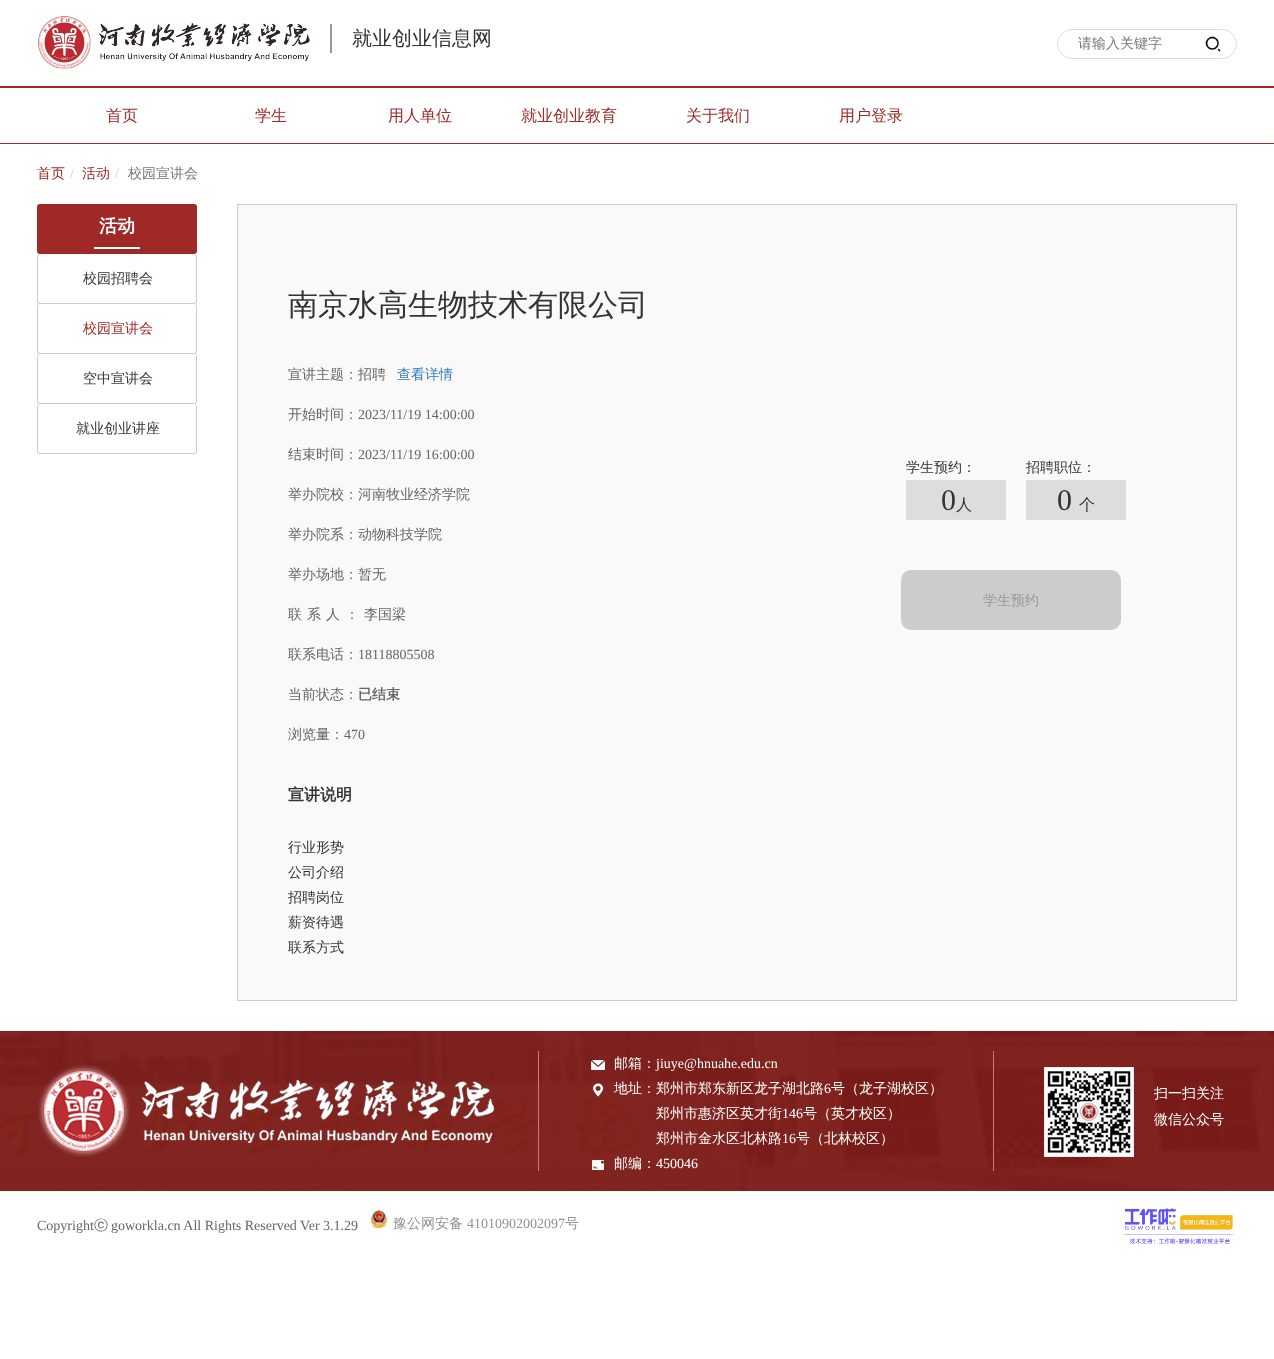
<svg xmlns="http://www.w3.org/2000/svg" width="1274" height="1359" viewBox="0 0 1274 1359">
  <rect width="100%" height="100%" fill="#ffffff"/>
  <rect x="0" y="86" width="1274" height="2" fill="#9e2926"/>
  <image x="38" y="16" width="272" height="53" href="img1.png"/>
  <rect x="330" y="24" width="2" height="29" fill="#999999"/>
  <text x="352" y="45" font-family="WenQuanYi Zen Hei" font-size="20" font-weight="500" fill="#333333">就业创业信息网</text>
  <rect x="1057.5" y="29.5" width="179" height="29" rx="14.5" fill="none" stroke="#dddddd"/>
  <text x="1078" y="48" font-family="WenQuanYi Zen Hei" font-size="14" font-weight="500" fill="#777777">请输入关键字</text>
  <image x="1205" y="36" width="16" height="16" href="img2.png"/>
  <rect x="0" y="143" width="1274" height="1" fill="#9e2926"/>
  <text x="106" y="121" font-family="WenQuanYi Zen Hei" font-size="16" font-weight="500" fill="#9e2926">首页</text>
  <text x="255" y="121" font-family="WenQuanYi Zen Hei" font-size="16" font-weight="500" fill="#9e2926">学生</text>
  <text x="388" y="121" font-family="WenQuanYi Zen Hei" font-size="16" font-weight="500" fill="#9e2926">用人单位</text>
  <text x="521" y="121" font-family="WenQuanYi Zen Hei" font-size="16" font-weight="500" fill="#9e2926">就业创业教育</text>
  <text x="686" y="121" font-family="WenQuanYi Zen Hei" font-size="16" font-weight="500" fill="#9e2926">关于我们</text>
  <text x="839" y="121" font-family="WenQuanYi Zen Hei" font-size="16" font-weight="500" fill="#9e2926">用户登录</text>
  <text x="37" y="178" font-family="WenQuanYi Zen Hei" font-size="14" font-weight="500" fill="#9e2926">首页</text>
  <text x="70" y="178" font-family="Liberation Serif" font-size="14" fill="#cccccc">/</text>
  <text x="82" y="178" font-family="WenQuanYi Zen Hei" font-size="14" font-weight="500" fill="#9e2926">活动</text>
  <text x="115" y="178" font-family="Liberation Serif" font-size="14" fill="#cccccc">/</text>
  <text x="128" y="178" font-family="WenQuanYi Zen Hei" font-size="14" font-weight="500" fill="#777777">校园宣讲会</text>
  <rect x="37" y="204" width="160" height="50" rx="3" fill="#9e2926"/>
  <rect x="94" y="247" width="46" height="2" fill="#ffffff"/>
  <text x="99" y="232" font-family="WenQuanYi Zen Hei" font-size="18" font-weight="bold" fill="#ffffff">活动</text>
  <path d="M40 254H194C196 254 197 255 197 257V301C197 303 196 304 194 304H40C38 304 37 303 37 301V257C37 255 38 254 40 254ZM40 254H194C195 254 196 255 196 257V301C196 302 195 303 194 303H40C39 303 38 302 38 301V257C38 255 39 254 40 254Z" fill="#cccccc" fill-rule="evenodd"/>
  <text x="83" y="283" font-family="WenQuanYi Zen Hei" font-size="14" font-weight="500" fill="#333333">校园招聘会</text>
  <path d="M40 304H194C196 304 197 305 197 307V351C197 353 196 354 194 354H40C38 354 37 353 37 351V307C37 305 38 304 40 304ZM40 304H194C195 304 196 305 196 307V351C196 352 195 353 194 353H40C39 353 38 352 38 351V307C38 305 39 304 40 304Z" fill="#cccccc" fill-rule="evenodd"/>
  <text x="83" y="333" font-family="WenQuanYi Zen Hei" font-size="14" font-weight="500" fill="#9e2926">校园宣讲会</text>
  <path d="M40 354H194C196 354 197 355 197 357V401C197 403 196 404 194 404H40C38 404 37 403 37 401V357C37 355 38 354 40 354ZM40 354H194C195 354 196 355 196 357V401C196 402 195 403 194 403H40C39 403 38 402 38 401V357C38 355 39 354 40 354Z" fill="#cccccc" fill-rule="evenodd"/>
  <text x="83" y="383" font-family="WenQuanYi Zen Hei" font-size="14" font-weight="500" fill="#333333">空中宣讲会</text>
  <path d="M40 404H194C196 404 197 405 197 407V451C197 453 196 454 194 454H40C38 454 37 453 37 451V407C37 405 38 404 40 404ZM40 404H194C195 404 196 405 196 407V451C196 452 195 453 194 453H40C39 453 38 452 38 451V407C38 405 39 404 40 404Z" fill="#cccccc" fill-rule="evenodd"/>
  <text x="76" y="433" font-family="WenQuanYi Zen Hei" font-size="14" font-weight="500" fill="#333333">就业创业讲座</text>
  <rect x="237.5" y="204.5" width="999" height="796" fill="#f9f9f9" stroke="#cccccc"/>
  <text x="288" y="315" font-family="WenQuanYi Zen Hei" font-size="30" font-weight="500" fill="#333333">南京水高生物技术有限公司</text>
  <text x="288" y="379" font-family="WenQuanYi Zen Hei" font-size="14" font-weight="500" fill="#666666">宣讲主题：招聘</text>
  <text x="397" y="379" font-family="WenQuanYi Zen Hei" font-size="14" font-weight="500" fill="#337ab7">查看详情</text>
  <text x="288" y="419" font-family="WenQuanYi Zen Hei" font-size="14" font-weight="500" fill="#666666">开始时间：</text>
  <text x="358" y="419" font-family="Liberation Serif" font-size="14" fill="#666666">2023/11/19 14:00:00</text>
  <text x="288" y="459" font-family="WenQuanYi Zen Hei" font-size="14" font-weight="500" fill="#666666">结束时间：</text>
  <text x="358" y="459" font-family="Liberation Serif" font-size="14" fill="#666666">2023/11/19 16:00:00</text>
  <text x="288" y="499" font-family="WenQuanYi Zen Hei" font-size="14" font-weight="500" fill="#666666">举办院校：河南牧业经济学院</text>
  <text x="288" y="539" font-family="WenQuanYi Zen Hei" font-size="14" font-weight="500" fill="#666666">举办院系：动物科技学院</text>
  <text x="288" y="579" font-family="WenQuanYi Zen Hei" font-size="14" font-weight="500" fill="#666666">举办场地：暂无</text>
  <text x="288" y="619" font-family="WenQuanYi Zen Hei" font-size="14" font-weight="500" letter-spacing="5" fill="#666666">联系人：</text>
  <text x="364" y="619" font-family="WenQuanYi Zen Hei" font-size="14" font-weight="500" fill="#666666">李国梁</text>
  <text x="288" y="659" font-family="WenQuanYi Zen Hei" font-size="14" font-weight="500" fill="#666666">联系电话：</text>
  <text x="358" y="659" font-family="Liberation Serif" font-size="14" fill="#666666">18118805508</text>
  <text x="288" y="699" font-family="WenQuanYi Zen Hei" font-size="14" font-weight="500" fill="#666666">当前状态：</text>
  <text x="358" y="699" font-family="WenQuanYi Zen Hei" font-size="14" font-weight="bold" fill="#666666">已结束</text>
  <text x="288" y="739" font-family="WenQuanYi Zen Hei" font-size="14" font-weight="500" fill="#666666">浏览量：</text>
  <text x="344" y="739" font-family="Liberation Serif" font-size="14" fill="#666666">470</text>
  <text x="906" y="472" font-family="WenQuanYi Zen Hei" font-size="14" font-weight="500" fill="#333333">学生预约：</text>
  <rect x="906" y="480" width="100" height="40" fill="#dddddd"/>
  <text x="941" y="510" font-family="Liberation Serif" font-size="30" fill="#333333">0</text>
  <text x="956" y="510" font-family="WenQuanYi Zen Hei" font-size="16" font-weight="500" fill="#333333">人</text>
  <text x="1026" y="472" font-family="WenQuanYi Zen Hei" font-size="14" font-weight="500" fill="#333333">招聘职位：</text>
  <rect x="1026" y="480" width="100" height="40" fill="#dddddd"/>
  <text x="1057" y="510" font-family="Liberation Serif" font-size="30" fill="#333333">0</text>
  <text x="1079" y="510" font-family="WenQuanYi Zen Hei" font-size="16" font-weight="500" fill="#333333">个</text>
  <rect x="901" y="570" width="220" height="60" rx="10" fill="#cccccc"/>
  <text x="983" y="605" font-family="WenQuanYi Zen Hei" font-size="14" font-weight="500" fill="#999999">学生预约</text>
  <text x="288" y="800" font-family="WenQuanYi Zen Hei" font-size="16" font-weight="bold" fill="#333333">宣讲说明</text>
  <text x="288" y="852" font-family="WenQuanYi Zen Hei" font-size="14" font-weight="500" fill="#333333">行业形势</text>
  <text x="288" y="877" font-family="WenQuanYi Zen Hei" font-size="14" font-weight="500" fill="#333333">公司介绍</text>
  <text x="288" y="902" font-family="WenQuanYi Zen Hei" font-size="14" font-weight="500" fill="#333333">招聘岗位</text>
  <text x="288" y="927" font-family="WenQuanYi Zen Hei" font-size="14" font-weight="500" fill="#333333">薪资待遇</text>
  <text x="288" y="952" font-family="WenQuanYi Zen Hei" font-size="14" font-weight="500" fill="#333333">联系方式</text>
  <image x="0" y="1031" width="1274" height="160" href="img3.png"/>
  <rect x="538" y="1051" width="1" height="120" fill="#d37873"/>
  <image x="38" y="1065" width="456" height="92" href="img4.png"/>
  <rect x="993" y="1051" width="1" height="120" fill="#d37873"/>
  <image x="591" y="1060" width="14" height="10" href="img5.png"/>
  <text x="614" y="1068" font-family="WenQuanYi Zen Hei" font-size="14" font-weight="500" fill="#ffffff">邮箱：</text>
  <text x="656" y="1068" font-family="Liberation Serif" font-size="14" fill="#ffffff">jiuye@hnuahe.edu.cn</text>
  <image x="593" y="1083" width="10" height="14" href="img6.png"/>
  <text x="614" y="1093" font-family="WenQuanYi Zen Hei" font-size="14" font-weight="500" fill="#ffffff">地址：郑州市郑东新区龙子湖北路</text>
  <text x="824" y="1093" font-family="Liberation Serif" font-size="14" fill="#ffffff">6</text>
  <text x="831" y="1093" font-family="WenQuanYi Zen Hei" font-size="14" font-weight="500" fill="#ffffff">号（龙子湖校区）</text>
  <text x="656" y="1118" font-family="WenQuanYi Zen Hei" font-size="14" font-weight="500" fill="#ffffff">郑州市惠济区英才街</text>
  <text x="782" y="1118" font-family="Liberation Serif" font-size="14" fill="#ffffff">146</text>
  <text x="803" y="1118" font-family="WenQuanYi Zen Hei" font-size="14" font-weight="500" fill="#ffffff">号（英才校区）</text>
  <text x="656" y="1143" font-family="WenQuanYi Zen Hei" font-size="14" font-weight="500" fill="#ffffff">郑州市金水区北林路</text>
  <text x="782" y="1143" font-family="Liberation Serif" font-size="14" fill="#ffffff">16</text>
  <text x="796" y="1143" font-family="WenQuanYi Zen Hei" font-size="14" font-weight="500" fill="#ffffff">号（北林校区）</text>
  <image x="592" y="1160" width="12" height="10" href="img7.png"/>
  <text x="614" y="1168" font-family="WenQuanYi Zen Hei" font-size="14" font-weight="500" fill="#ffffff">邮编：</text>
  <text x="656" y="1168" font-family="Liberation Serif" font-size="14" fill="#ffffff">450046</text>
  <image x="1044" y="1067" width="90" height="90" href="img8.png"/>
  <text x="1154" y="1098" font-family="WenQuanYi Zen Hei" font-size="14" font-weight="500" fill="#ffffff">扫一扫关注</text>
  <text x="1154" y="1124" font-family="WenQuanYi Zen Hei" font-size="14" font-weight="500" fill="#ffffff">微信公众号</text>
  <text x="37" y="1230" font-family="Liberation Serif" font-size="14" fill="#666666">Copyright</text>
  <text x="94" y="1230" font-family="WenQuanYi Zen Hei" font-size="14" font-weight="500" fill="#666666">ⓒ</text>
  <text x="111" y="1230" font-family="Liberation Serif" font-size="14" fill="#666666">goworkla.cn All Rights Reserved Ver 3.1.29</text>
  <image x="371" y="1210" width="17" height="18" href="img9.png"/>
  <text x="393" y="1228" font-family="WenQuanYi Zen Hei" font-size="14" font-weight="500" fill="#939393">豫公网安备</text>
  <text x="467" y="1228" font-family="Liberation Serif" font-size="14" fill="#939393">41010902002097</text>
  <text x="565" y="1228" font-family="WenQuanYi Zen Hei" font-size="14" font-weight="500" fill="#939393">号</text>
  <image x="1124" y="1208" width="109" height="36" href="img10.png"/>
</svg>
